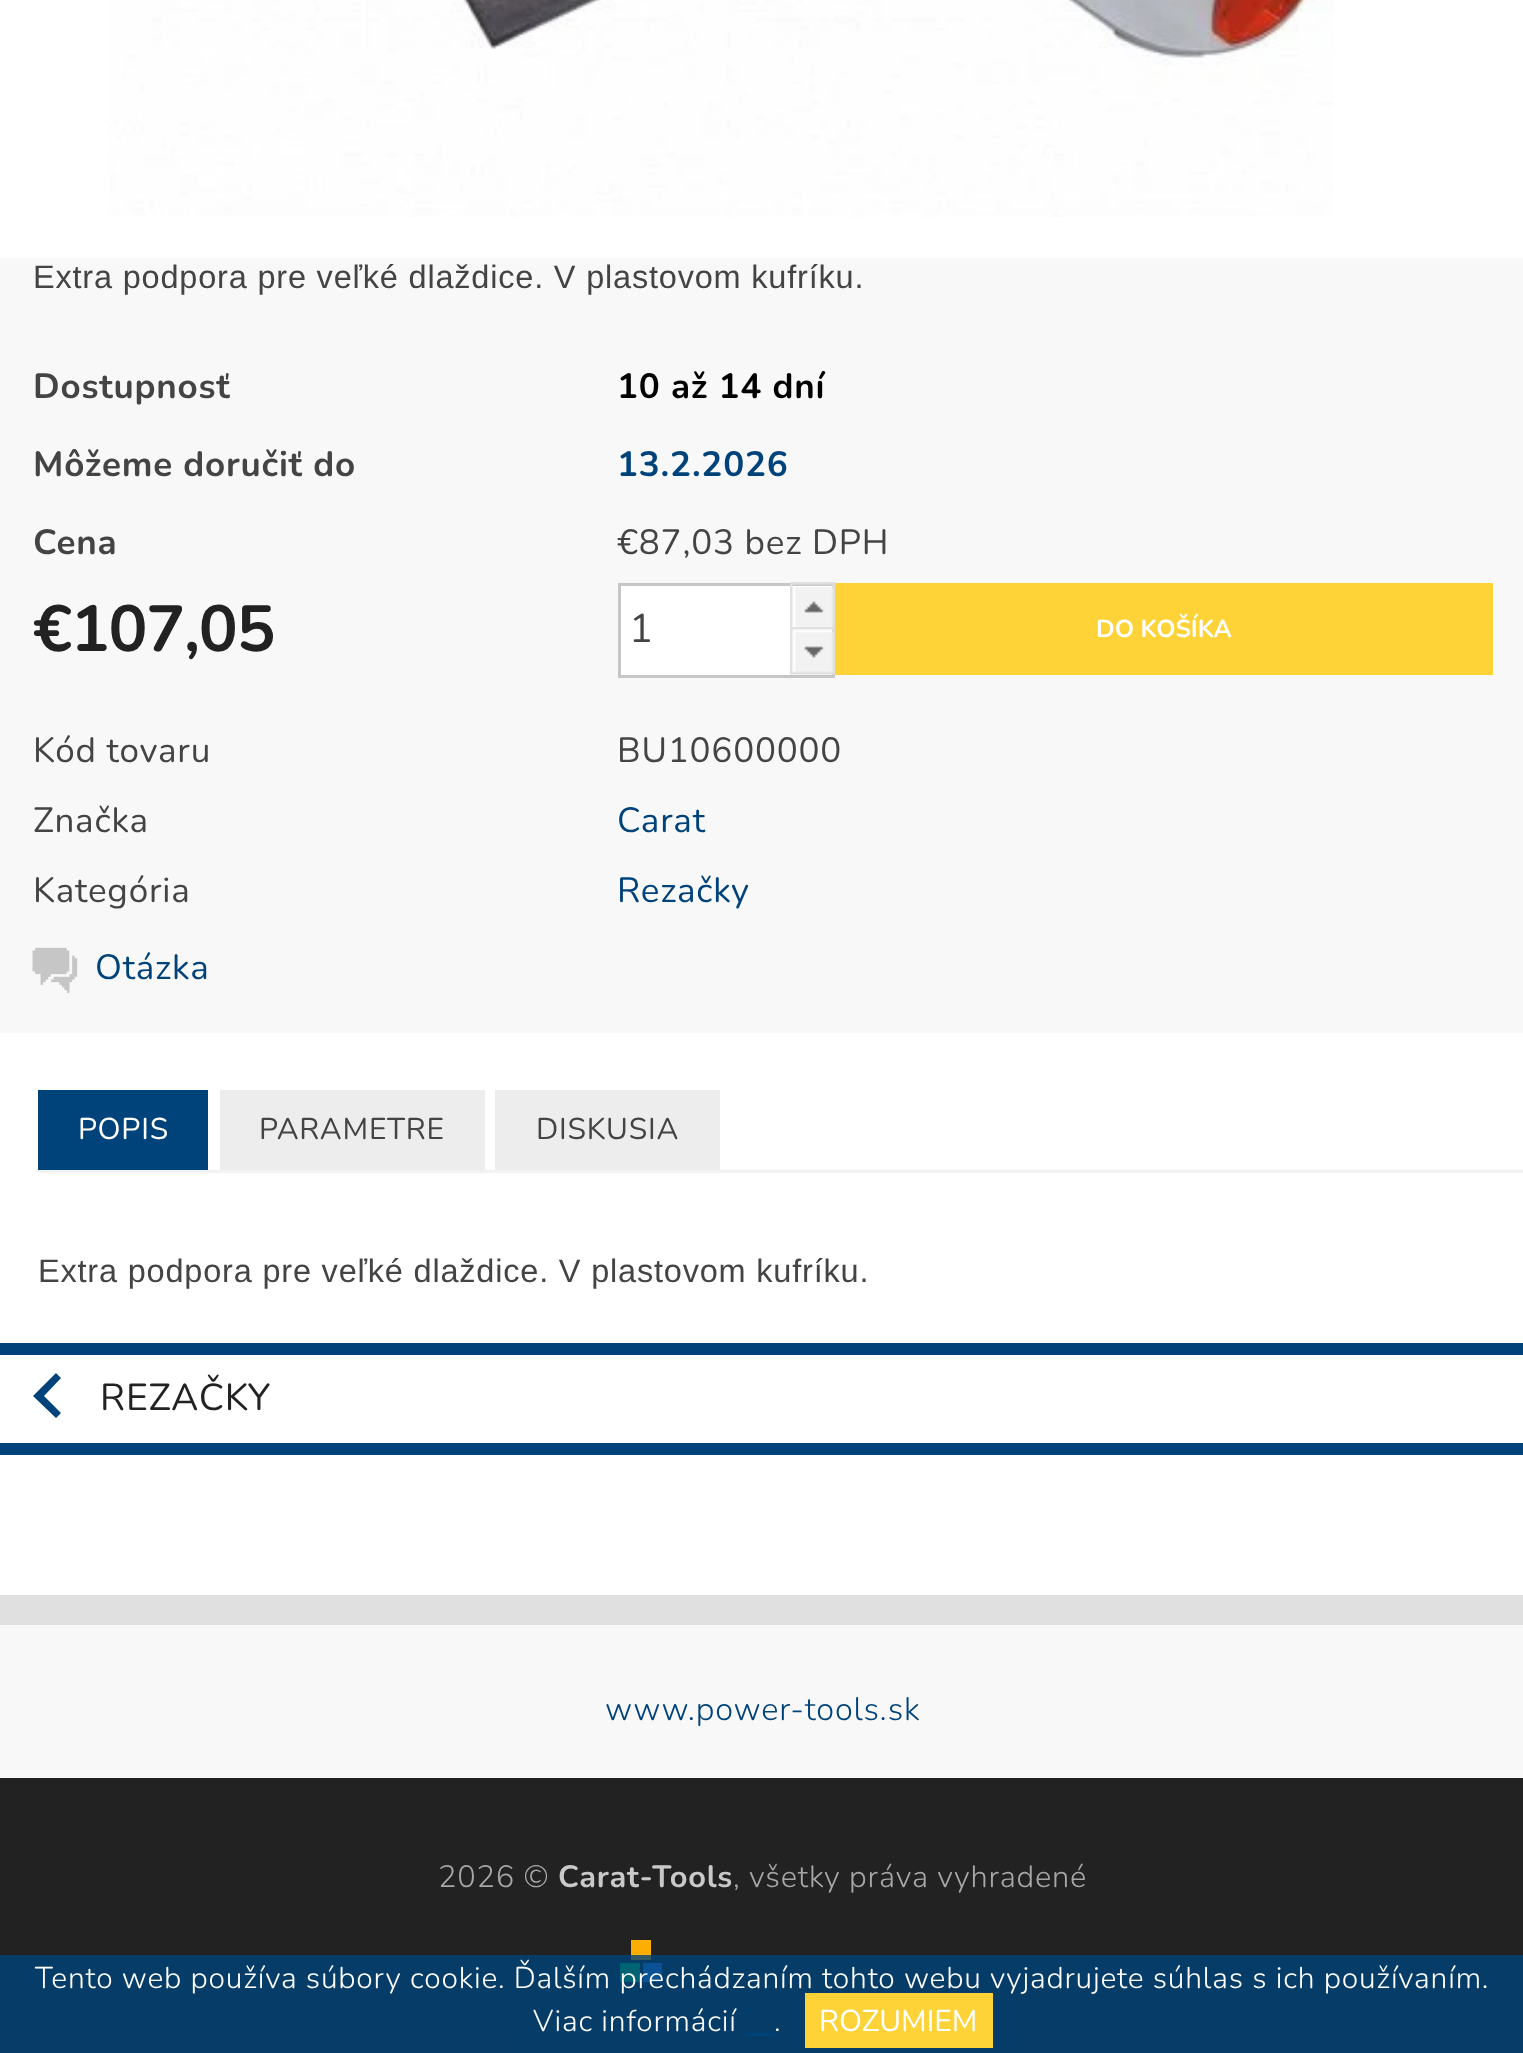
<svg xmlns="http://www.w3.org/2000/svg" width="1523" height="2053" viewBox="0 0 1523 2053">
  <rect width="100%" height="100%" fill="#ffffff"/>
  <image x="109" y="0" width="1225" height="217" href="img1.png"/>
  <rect x="0" y="258" width="1523" height="775" fill="#f8f8f8"/>
  <text x="33" y="288" font-family="Liberation Sans" font-size="32.5" letter-spacing="0.8" fill="#444444">Extra podpora pre veľké dlaždice. V plastovom kufríku.</text>
  <text x="33" y="398" font-family="Nunito" font-size="35" font-weight="bold" letter-spacing="0.8" fill="#444444">Dostupnosť</text>
  <text x="617" y="398" font-family="Nunito" font-size="35" font-weight="bold" letter-spacing="0.8" fill="#000000">10 až 14 dní</text>
  <text x="33" y="476" font-family="Nunito" font-size="35" font-weight="bold" letter-spacing="0.8" fill="#444444">Môžeme doručiť do</text>
  <text x="617" y="476" font-family="Nunito" font-size="35" font-weight="bold" letter-spacing="0.8" fill="#00437a">13.2.2026</text>
  <text x="33" y="554" font-family="Nunito" font-size="35" font-weight="bold" letter-spacing="0.8" fill="#444444">Cena</text>
  <text x="617" y="554" font-family="Nunito" font-size="35" letter-spacing="0.8" fill="#444444">€87,03 bez DPH</text>
  <text x="33" y="651" font-family="Nunito" font-size="65" font-weight="bold" letter-spacing="-1.25" fill="#222222">€107,05</text>
  <rect x="619.5" y="584.5" width="214" height="92" fill="#ffffff" stroke="#c6c6c6" stroke-width="3"/>
  <text x="629" y="642" font-family="Nunito" font-size="40" fill="#444444">1</text>
  <image x="790" y="582" width="45" height="45" href="img2.png"/>
  <image x="790" y="627" width="45" height="48" href="img3.png"/>
  <rect x="835" y="583" width="658" height="92" fill="#fdd337"/>
  <text x="1096" y="637" font-family="Nunito" font-size="24.5" font-weight="bold" fill="#ffffff">DO KOŠÍKA</text>
  <text x="33" y="762" font-family="Nunito" font-size="35" letter-spacing="0.8" fill="#444444">Kód tovaru</text>
  <text x="617" y="762" font-family="Nunito" font-size="35" letter-spacing="0.8" fill="#444444">BU10600000</text>
  <text x="33" y="832" font-family="Nunito" font-size="35" letter-spacing="0.8" fill="#444444">Značka</text>
  <text x="617" y="832" font-family="Nunito" font-size="35" letter-spacing="0.8" fill="#00437a">Carat</text>
  <text x="33" y="902" font-family="Nunito" font-size="35" letter-spacing="0.8" fill="#444444">Kategória</text>
  <text x="617" y="902" font-family="Nunito" font-size="35" letter-spacing="0.8" fill="#00437a">Rezačky</text>
  <image x="32" y="947" width="46" height="46" href="img4.png"/>
  <text x="95" y="979" font-family="Nunito" font-size="35" letter-spacing="0.8" fill="#00437a">Otázka</text>
  <rect x="38" y="1170" width="1485" height="3" fill="#f2f2f2"/>
  <rect x="38" y="1090" width="170" height="80" fill="#00437a"/>
  <text x="78" y="1139" font-family="Nunito" font-size="30" letter-spacing="0.8" fill="#ffffff">POPIS</text>
  <rect x="220" y="1090" width="265" height="80" fill="#ededed"/>
  <text x="259" y="1139" font-family="Nunito" font-size="30" letter-spacing="0.8" fill="#444444">PARAMETRE</text>
  <rect x="495" y="1090" width="225" height="80" fill="#ededed"/>
  <text x="536" y="1139" font-family="Nunito" font-size="30" letter-spacing="0.8" fill="#444444">DISKUSIA</text>
  <text x="38" y="1282" font-family="Liberation Sans" font-size="32.5" letter-spacing="0.8" fill="#444444">Extra podpora pre veľké dlaždice. V plastovom kufríku.</text>
  <rect x="0" y="1343" width="1523" height="12" fill="#00437a"/>
  <rect x="0" y="1443" width="1523" height="12" fill="#00437a"/>
  <path d="M56 1373L33 1396L56 1418L61 1413L44 1396L61 1378Z" fill="#00437a"/>
  <text x="100" y="1410" font-family="Nunito" font-size="37.5" letter-spacing="0.8" fill="#222222">REZAČKY</text>
  <rect x="0" y="1625" width="1523" height="153" fill="#f8f8f8"/>
  <rect x="0" y="1595" width="1523" height="30" fill="#e0e0e0"/>
  <text x="605" y="1720" font-family="Nunito" font-size="32.5" font-weight="300" letter-spacing="0.8" fill="#00437a">www.power-tools.sk</text>
  <rect x="0" y="1778" width="1523" height="275" fill="#222222"/>
  <text x="438" y="1887" font-family="Nunito" font-size="30.75" font-weight="300" letter-spacing="0.8" fill="#a6a6a6">2026 ©</text>
  <text x="558" y="1887" font-family="Nunito" font-size="30.75" font-weight="bold" letter-spacing="0.8" fill="#c9c9c9">Carat-Tools</text>
  <text x="733" y="1887" font-family="Nunito" font-size="30.75" font-weight="300" letter-spacing="0.8" fill="#a6a6a6">, všetky práva vyhradené</text>
  <rect x="631" y="1940" width="20" height="20" fill="#fcaf00"/>
  <rect x="620" y="1963" width="20" height="19" fill="#00e25a"/>
  <rect x="643" y="1963" width="19" height="19" fill="#3b88ff"/>
  <rect x="0" y="1955" width="1523" height="98" fill="#00437a" fill-opacity="0.8"/>
  <text x="35" y="1988" font-family="Nunito" font-size="30" font-weight="300" letter-spacing="0.8" fill="#ffffff">Tento web používa súbory cookie. Ďalším prechádzaním tohto webu vyjadrujete súhlas s ich používaním.</text>
  <text x="533" y="2031" font-family="Nunito" font-size="30" font-weight="300" letter-spacing="0.8" fill="#ffffff">Viac informácií</text>
  <text x="774" y="2031" font-family="Nunito" font-size="30" font-weight="300" letter-spacing="0.8" fill="#ffffff">.</text>
  <rect x="805" y="1993" width="188" height="55" fill="#fdd337"/>
  <text x="819" y="2031" font-family="Nunito" font-size="30" fill="#ffffff">ROZUMIEM</text>
  <rect x="745" y="2033" width="30" height="3" fill="#00437a"/>
</svg>
